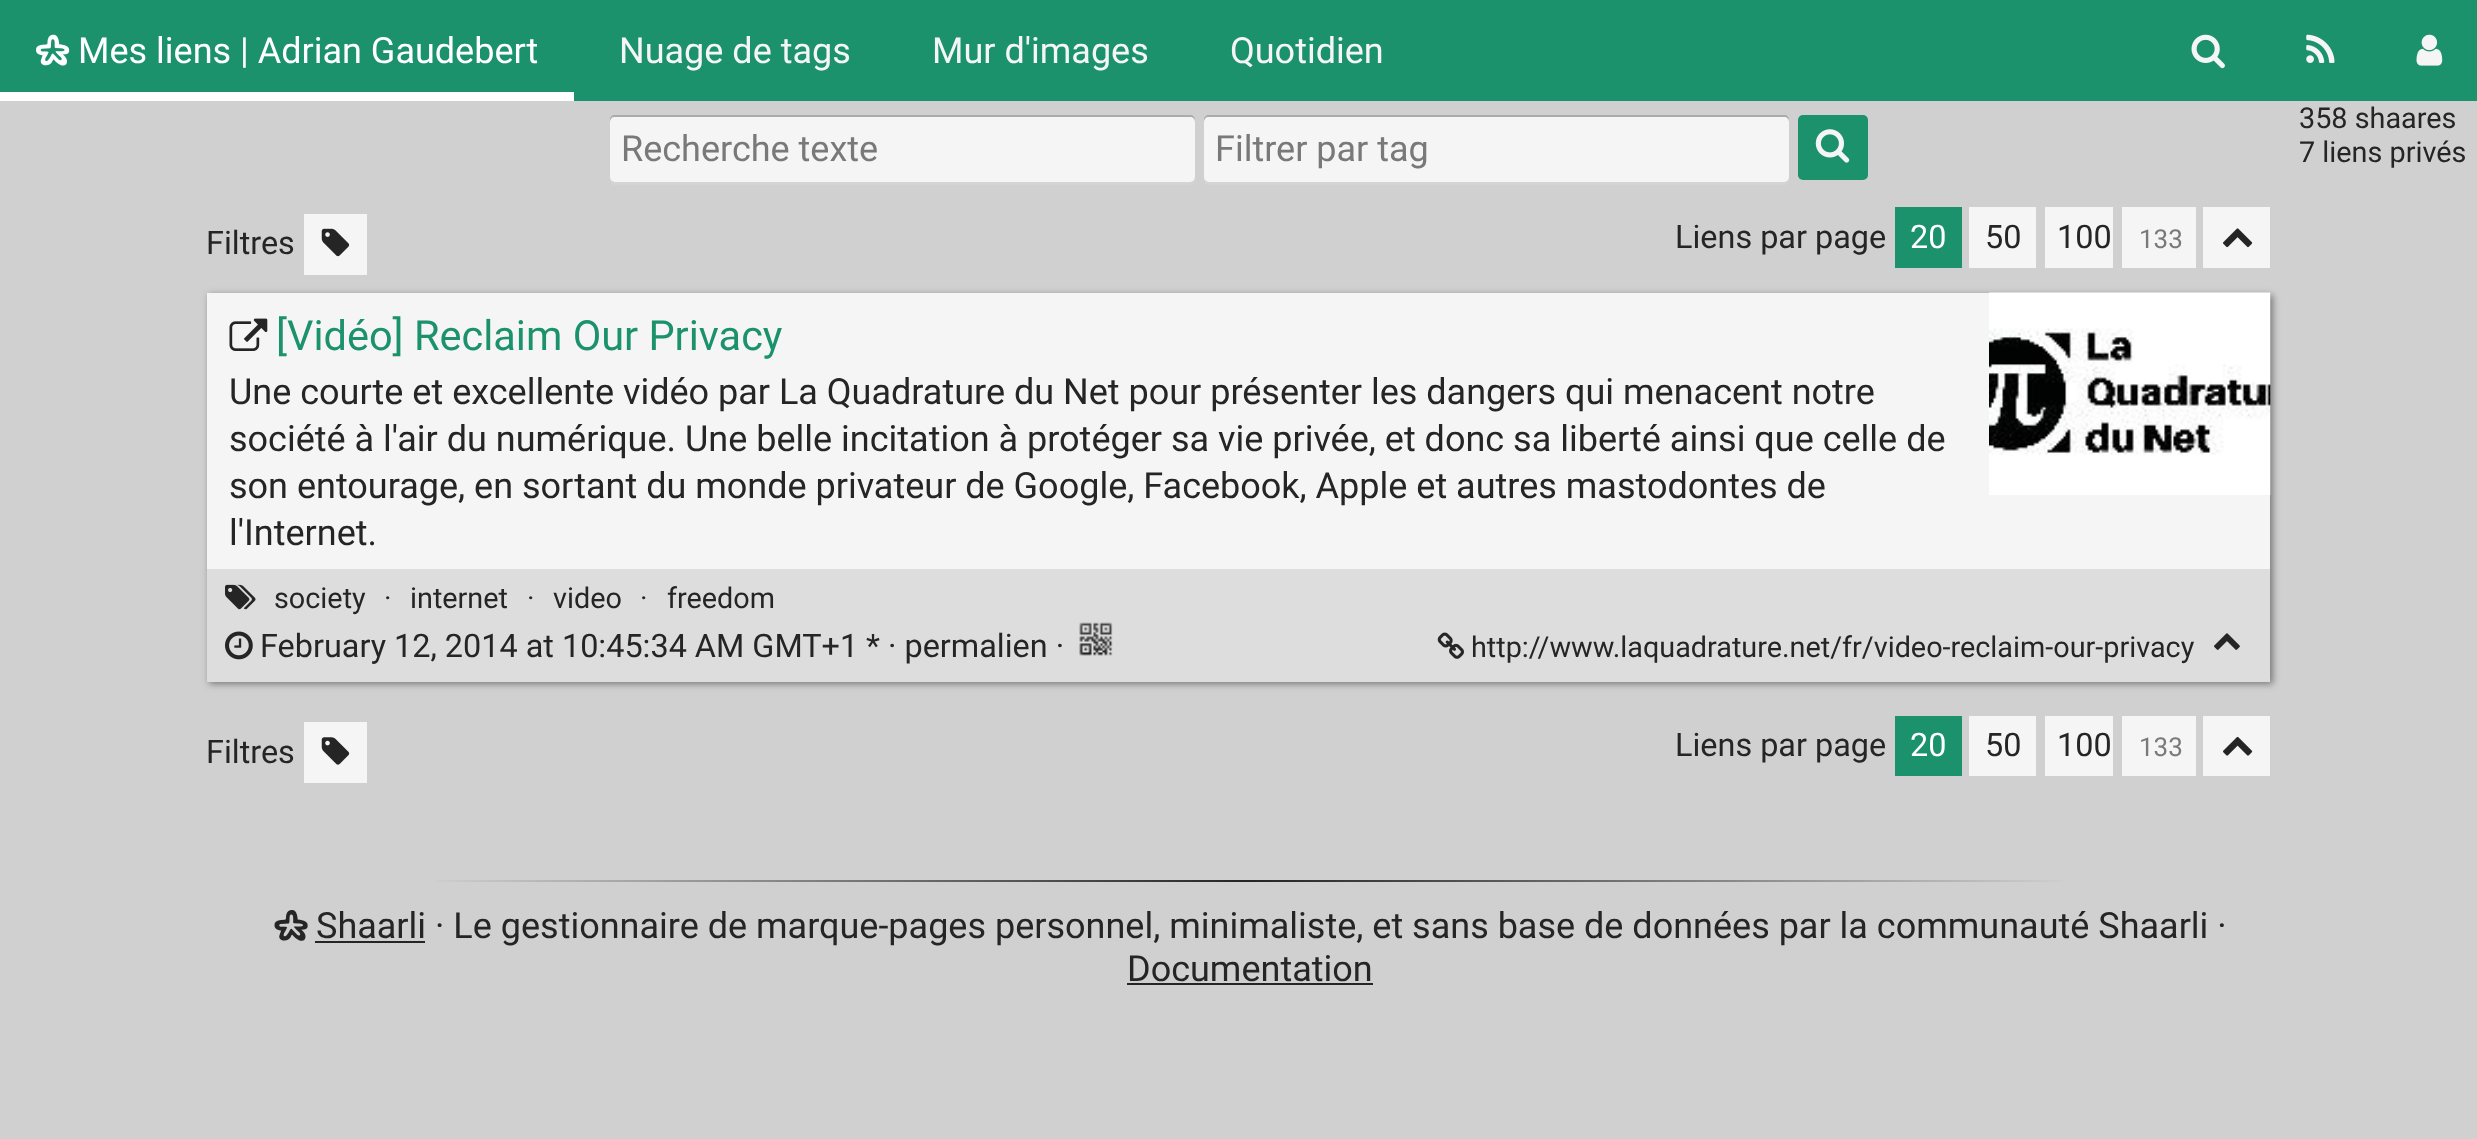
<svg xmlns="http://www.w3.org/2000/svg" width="2477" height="1139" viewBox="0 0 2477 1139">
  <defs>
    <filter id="blur1" x="-50%" y="-200%" width="200%" height="500%"><feGaussianBlur stdDeviation="3.5"/></filter>
    <linearGradient id="g1" gradientUnits="userSpaceOnUse" x1="423" y1="881" x2="2075" y2="881"><stop offset="0" stop-color="#d0d0d0"/><stop offset="0.5" stop-color="#252525"/><stop offset="1" stop-color="#d0d0d0"/></linearGradient>
  </defs>
  <rect width="100%" height="100%" fill="#d0d0d0"/>
  <rect x="0" y="0" width="2477" height="101" fill="#1b926c"/>
  <image x="36" y="34" width="34" height="32" href="img1.png"/>
  <text x="78" y="63" font-family="Roboto" font-size="36" fill="#ffffff">Mes liens | Adrian Gaudebert</text>
  <rect x="0" y="92" width="574" height="9" fill="#ffffff"/>
  <text x="619" y="63" font-family="Roboto" font-size="36" fill="#f5f5f5">Nuage de tags</text>
  <text x="932" y="63" font-family="Roboto" font-size="36" fill="#f5f5f5">Mur d'images</text>
  <text x="1230" y="63" font-family="Roboto" font-size="36" fill="#f5f5f5">Quotidien</text>
  <image x="2191" y="34" width="34" height="35" href="img2.png"/>
  <image x="2306" y="34" width="29" height="29" href="img3.png"/>
  <image x="2416" y="34" width="27" height="32" href="img4.png"/>
  <path d="M610 179V180C610 183 612 185 615 185H1190C1193 185 1195 183 1195 180V120V178C1195 180 1193 182 1190 182H614C612 182 611 181 610 179Z" fill="#d4d4d4"/>
  <rect x="610" y="115" width="585" height="67" rx="5" fill="#f5f5f5"/>
  <path d="M614 117H1190C1193 117 1195 119 1195 122V120C1195 117 1193 115 1190 115H615C612 115 610 117 610 120V122C610 119 612 117 614 117Z" fill="#000000" fill-opacity="0.3"/>
  <text x="621" y="161" font-family="Roboto" font-size="36" fill="#797979">Recherche texte</text>
  <path d="M1204 179V180C1204 183 1206 185 1209 185H1784C1787 185 1789 183 1789 180V120V178C1789 180 1787 182 1784 182H1208C1206 182 1205 181 1204 179Z" fill="#d4d4d4"/>
  <rect x="1204" y="115" width="585" height="67" rx="5" fill="#f5f5f5"/>
  <path d="M1208 117H1784C1787 117 1789 119 1789 122V120C1789 117 1787 115 1784 115H1209C1206 115 1204 117 1204 120V122C1204 119 1206 117 1208 117Z" fill="#000000" fill-opacity="0.3"/>
  <text x="1215" y="161" font-family="Roboto" font-size="36" fill="#797979">Filtrer par tag</text>
  <rect x="1798" y="115" width="70" height="65" rx="5" fill="#1b926c"/>
  <image x="1815" y="129" width="35" height="34" href="img5.png"/>
  <text x="2299" y="128" font-family="Roboto" font-size="28.8" fill="#252525">358 shaares</text>
  <text x="2299" y="162" font-family="Roboto" font-size="28.8" fill="#252525">7 liens privés</text>
  <text x="206" y="254" font-family="Roboto" font-size="32.4" fill="#252525">Filtres</text>
  <rect x="304" y="214" width="63" height="61" fill="#f5f5f5"/>
  <image x="321" y="228" width="29" height="29" href="img6.png"/>
  <text x="1675" y="248" font-family="Roboto" font-size="32.4" fill="#252525">Liens par page</text>
  <rect x="1895" y="207" width="67" height="61" fill="#1b926c"/>
  <text x="1910" y="248" font-family="Roboto" font-size="32.4" fill="#ffffff">20</text>
  <rect x="1969" y="207" width="67" height="61" fill="#f5f5f5"/>
  <text x="1985" y="248" font-family="Roboto" font-size="32.4" fill="#252525">50</text>
  <rect x="2045" y="207" width="68" height="61" fill="#f5f5f5"/>
  <text x="2057" y="248" font-family="Roboto" font-size="32.4" fill="#252525">100</text>
  <rect x="2122" y="207" width="74" height="61" fill="#f5f5f5"/>
  <text x="2139" y="248" font-family="Roboto" font-size="26" fill="#797979">133</text>
  <rect x="2203" y="207" width="67" height="61" fill="#f5f5f5"/>
  <image x="2223" y="228" width="30" height="20" href="img7.png"/>
  <rect x="209" y="295" width="2064" height="389" fill="#797979" filter="url(#blur1)"/>
  <rect x="207" y="293" width="2063" height="276" fill="#f5f5f5"/>
  <image x="229" y="318" width="39" height="33" href="img8.png"/>
  <text x="276" y="350" font-family="Roboto" font-size="41.5" fill="#1b926c">[Vidéo] Reclaim Our Privacy</text>
  <image x="1989" y="292" width="282" height="203" href="img9.png"/>
  <text x="229" y="404" font-family="Roboto" font-size="36" fill="#252525">Une courte et excellente vidéo par La Quadrature du Net pour présenter les dangers qui menacent notre</text>
  <text x="229" y="451" font-family="Roboto" font-size="36" fill="#252525">société à l'air du numérique. Une belle incitation à protéger sa vie privée, et donc sa liberté ainsi que celle de</text>
  <text x="229" y="498" font-family="Roboto" font-size="36" fill="#252525">son entourage, en sortant du monde privateur de Google, Facebook, Apple et autres mastodontes de</text>
  <text x="229" y="545" font-family="Roboto" font-size="36" fill="#252525">l'Internet.</text>
  <rect x="207" y="569" width="2063" height="113" fill="#dddddd"/>
  <image x="225" y="584" width="31" height="26" href="img10.png"/>
  <text x="274" y="608" font-family="Roboto" font-size="28.8" fill="#252525">society</text>
  <text x="384" y="608" font-family="Roboto" font-size="28.8" fill="#252525">·</text>
  <text x="410" y="608" font-family="Roboto" font-size="28.8" fill="#252525">internet</text>
  <text x="527" y="608" font-family="Roboto" font-size="28.8" fill="#252525">·</text>
  <text x="553" y="608" font-family="Roboto" font-size="28.8" fill="#252525">video</text>
  <text x="640" y="608" font-family="Roboto" font-size="28.8" fill="#252525">·</text>
  <text x="667" y="608" font-family="Roboto" font-size="28.8" fill="#252525">freedom</text>
  <image x="225" y="631" width="28" height="29" href="img11.png"/>
  <text x="260" y="657" font-family="Roboto" font-size="32.4" fill="#252525">February 12, 2014 at 10:45:34 AM GMT+1</text>
  <text x="866" y="657" font-family="Roboto" font-size="32.4" fill="#252525">* · permalien ·</text>
  <image x="1079" y="622" width="34" height="34" href="img12.png"/>
  <image x="1437" y="632" width="27" height="27" href="img13.png"/>
  <text x="1471" y="657" font-family="Roboto" font-size="28.8" fill="#252525">http://www.laquadrature.net/fr/video-reclaim-our-privacy</text>
  <image x="2214" y="633" width="26" height="17" href="img14.png"/>
  <text x="206" y="763" font-family="Roboto" font-size="32.4" fill="#252525">Filtres</text>
  <rect x="304" y="722" width="63" height="61" fill="#f5f5f5"/>
  <image x="321" y="737" width="29" height="28" href="img15.png"/>
  <text x="1675" y="756" font-family="Roboto" font-size="32.4" fill="#252525">Liens par page</text>
  <rect x="1895" y="716" width="67" height="60" fill="#1b926c"/>
  <text x="1910" y="756" font-family="Roboto" font-size="32.4" fill="#ffffff">20</text>
  <rect x="1969" y="716" width="67" height="60" fill="#f5f5f5"/>
  <text x="1985" y="756" font-family="Roboto" font-size="32.4" fill="#252525">50</text>
  <rect x="2045" y="716" width="68" height="60" fill="#f5f5f5"/>
  <text x="2057" y="756" font-family="Roboto" font-size="32.4" fill="#252525">100</text>
  <rect x="2122" y="716" width="74" height="60" fill="#f5f5f5"/>
  <text x="2139" y="756" font-family="Roboto" font-size="26" fill="#797979">133</text>
  <rect x="2203" y="716" width="67" height="60" fill="#f5f5f5"/>
  <image x="2223" y="736" width="30" height="20" href="img16.png"/>
  <rect x="435" y="880" width="1628" height="2" fill="url(#g1)"/>
  <image x="274" y="910" width="34" height="31" href="img17.png"/>
  <rect x="315" y="941" width="110" height="2" fill="#252525"/>
  <text x="316" y="938" font-family="Roboto" font-size="36" fill="#252525">Shaarli · Le gestionnaire de marque-pages personnel, minimaliste, et sans base de données par la communauté Shaarli ·</text>
  <text x="1127" y="981" font-family="Roboto" font-size="36" fill="#252525">Documentation</text>
  <rect x="1127" y="983" width="246" height="2" fill="#252525"/>
</svg>
